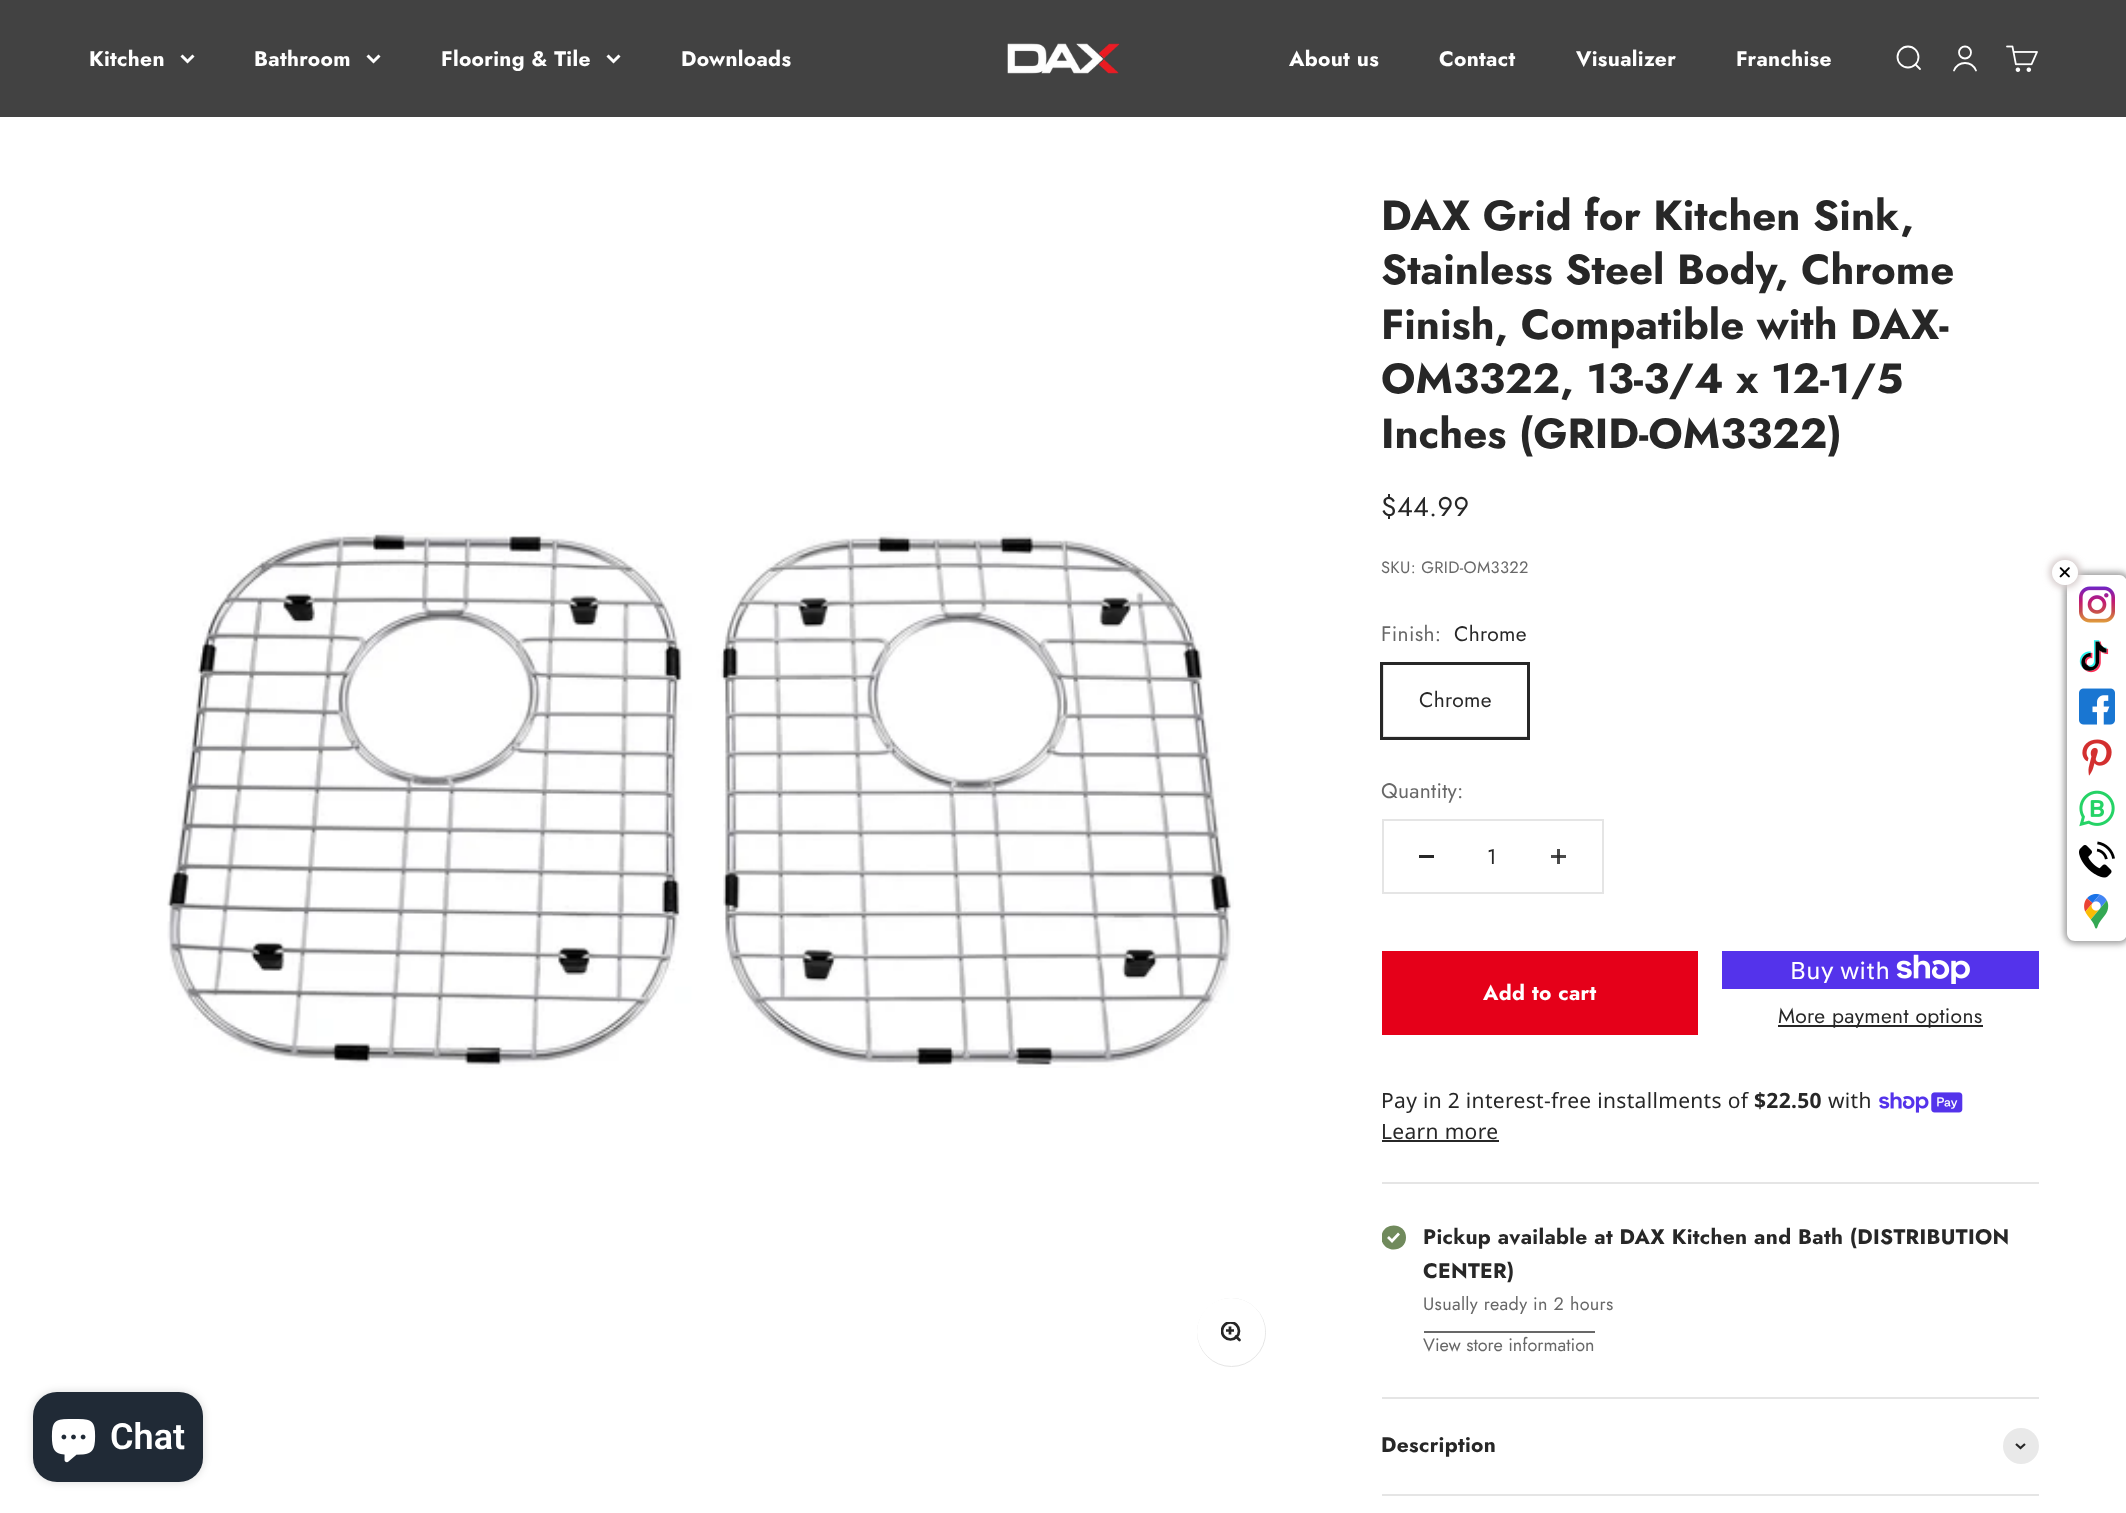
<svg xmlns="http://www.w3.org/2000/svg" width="2126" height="1513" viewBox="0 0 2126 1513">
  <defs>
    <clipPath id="clip1"><rect x="1221" y="1322" width="21" height="21"/></clipPath>
    <clipPath id="clip2"><rect x="1382" y="1224" width="24" height="27"/></clipPath>
    <clipPath id="clip3"><path d="M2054 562H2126V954H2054ZM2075 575H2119C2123.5 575 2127 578.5 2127 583V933C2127 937.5 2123.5 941 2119 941H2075C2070.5 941 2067 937.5 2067 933V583C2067 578.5 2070.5 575 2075 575Z" clip-rule="evenodd"/></clipPath>
    <filter id="blur1" x="-50%" y="-200%" width="200%" height="500%"><feGaussianBlur stdDeviation="3"/></filter>
    <filter id="blur2" x="-50%" y="-200%" width="200%" height="500%"><feGaussianBlur stdDeviation="4"/></filter>
  </defs>
  <rect width="100%" height="100%" fill="#ffffff"/>
  <rect x="1551" y="855" width="15" height="3" fill="#4c4c4c"/>
  <rect x="0" y="0" width="2126" height="117" fill="#424242"/>
  <text x="89" y="66" font-family="Jost" font-size="21" font-weight="bold" letter-spacing="0.32" fill="#ffffff">Kitchen</text>
  <path d="M181.5 55.5L187.5 61.5L193.5 55.5" fill="none" stroke="#ffffff" stroke-width="3"/>
  <text x="254" y="66" font-family="Jost" font-size="21" font-weight="bold" letter-spacing="0.32" fill="#ffffff">Bathroom</text>
  <path d="M367.5 55.5L373.5 61.5L379.5 55.5" fill="none" stroke="#ffffff" stroke-width="3"/>
  <text x="441" y="66" font-family="Jost" font-size="21" font-weight="bold" letter-spacing="0.32" fill="#ffffff">Flooring &amp; Tile</text>
  <path d="M607.5 55.5L613.5 61.5L619.5 55.5" fill="none" stroke="#ffffff" stroke-width="3"/>
  <text x="681" y="66" font-family="Jost" font-size="21" font-weight="bold" letter-spacing="0.32" fill="#ffffff">Downloads</text>
  <image x="1007" y="43" width="113" height="31" href="img1.png"/>
  <text x="1289" y="66" font-family="Jost" font-size="21" font-weight="bold" letter-spacing="0.32" fill="#ffffff">About us</text>
  <text x="1439" y="66" font-family="Jost" font-size="21" font-weight="bold" letter-spacing="0.32" fill="#ffffff">Contact</text>
  <text x="1576" y="66" font-family="Jost" font-size="21" font-weight="bold" letter-spacing="0.32" fill="#ffffff">Visualizer</text>
  <text x="1736" y="66" font-family="Jost" font-size="21" font-weight="bold" letter-spacing="0.32" fill="#ffffff">Franchise</text>
  <circle cx="1908" cy="57" r="10.5" fill="none" stroke="#ffffff" stroke-width="1.8"/>
  <path d="M1915.5 64.5L1920 69" fill="none" stroke="#ffffff" stroke-width="1.8" stroke-linecap="round" stroke-linejoin="round"/>
  <circle cx="1965" cy="52.5" r="6" fill="none" stroke="#ffffff" stroke-width="1.8"/>
  <path d="M1954 70.5C1958.5 60.5 1971.5 60.5 1976 70.5" fill="none" stroke="#ffffff" stroke-width="1.8" stroke-linecap="round"/>
  <image x="2006" y="45" width="32" height="27" href="img2.png"/>
  <image x="167" y="531" width="1067" height="537" href="img3.png"/>
  <circle cx="1231.5" cy="1332.5" r="34" fill="none" stroke="#e5e5e5"/>
  <rect x="1197" y="1298" width="68" height="67" rx="33.5" fill="#ffffff"/>
  <g clip-path="url(#clip1)">
    <circle cx="1230.5" cy="1331" r="8.5" fill="none" stroke="#272727" stroke-width="2.7"/>
  </g>
  <path d="M1236 1336.5L1239.5 1340" fill="none" stroke="#272727" stroke-width="2.7" stroke-linecap="round" stroke-linejoin="round"/>
  <path d="M1230 1326.5V1334.5M1226 1330.5H1234" fill="none" stroke="#272727" stroke-width="2.7"/>
  <text x="1381" y="230" font-family="Jost" font-size="42" font-weight="bold" fill="#272727">DAX Grid for Kitchen Sink,</text>
  <text x="1381" y="284" font-family="Jost" font-size="42" font-weight="bold" fill="#272727">Stainless Steel Body, Chrome</text>
  <text x="1381" y="339" font-family="Jost" font-size="42" font-weight="bold" fill="#272727">Finish, Compatible with DAX-</text>
  <text x="1381" y="393" font-family="Jost" font-size="42" font-weight="bold" fill="#272727">OM3322, 13-3/4 x 12-1/5</text>
  <text x="1381" y="448" font-family="Jost" font-size="42" font-weight="bold" fill="#272727">Inches (GRID-OM3322)</text>
  <text x="1381" y="516" font-family="Jost" font-size="27" letter-spacing="0.32" fill="#272727">$44.99</text>
  <text x="1381" y="573" font-family="Jost" font-size="16.5" letter-spacing="0.32" fill="#686868">SKU: GRID-OM3322</text>
  <text x="1381" y="641" font-family="Jost" font-size="21" letter-spacing="0.32" fill="#686868">Finish:</text>
  <text x="1454" y="641" font-family="Jost" font-size="21" letter-spacing="0.32" fill="#272727">Chrome</text>
  <rect x="1383" y="664" width="145" height="73" fill="none" stroke="#e5e5e5" stroke-width="2"/>
  <rect x="1381.5" y="663.5" width="147" height="75" fill="none" stroke="#272727" stroke-width="3"/>
  <text x="1419" y="707" font-family="Jost" font-size="21" letter-spacing="0.32" fill="#272727">Chrome</text>
  <text x="1381" y="798" font-family="Jost" font-size="21" letter-spacing="0.32" fill="#686868">Quantity:</text>
  <rect x="1383" y="820" width="220" height="73" fill="none" stroke="#e5e5e5" stroke-width="2"/>
  <rect x="1419" y="855" width="15" height="3" fill="#272727"/>
  <text x="1487" y="864" font-family="Jost" font-size="21" fill="#272727">1</text>
  <rect x="1557" y="849" width="3" height="15" fill="#4b4b4b"/>
  <rect x="1557" y="855" width="3" height="3" fill="#2d2d2d"/>
  <rect x="1382" y="951" width="316" height="84" fill="#e50019"/>
  <text x="1483" y="1000" font-family="Jost" font-size="21" font-weight="bold" letter-spacing="0.32" fill="#ffffff">Add to cart</text>
  <rect x="1722" y="951" width="317" height="38" fill="#5433eb"/>
  <text x="1790" y="979" font-family="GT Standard" font-size="24" letter-spacing="0.32" fill="#ffffff">Buy with</text>
  <image x="1896" y="954" width="74" height="30" href="img4.png"/>
  <rect x="1778" y="1025" width="205" height="2" fill="#272727"/>
  <text x="1778" y="1023" font-family="Jost" font-size="21" letter-spacing="0.32" fill="#272727">More payment options</text>
  <text x="1381" y="1108" font-family="Noto Sans" font-size="21" letter-spacing="0.32" fill="#272727">Pay in 2 interest-free installments of</text>
  <text x="1754" y="1108" font-family="Noto Sans" font-size="21" font-weight="bold" letter-spacing="0.32" fill="#272727">$22.50</text>
  <text x="1828" y="1108" font-family="Noto Sans" font-size="21" letter-spacing="0.32" fill="#272727">with</text>
  <image x="1879" y="1092" width="84" height="21" href="img5.png"/>
  <text x="1381" y="1139" font-family="Noto Sans" font-size="21" letter-spacing="0.32" fill="#272727">Learn more</text>
  <rect x="1382" y="1140" width="117" height="2" fill="#272727"/>
  <rect x="1382" y="1182" width="657" height="2" fill="#e5e5e5"/>
  <g clip-path="url(#clip2)">
    <path d="M1381.5 1237.5C1381.5 1221.5 1406 1221.5 1406 1237.5C1406 1253.5 1381.5 1253.5 1381.5 1237.5Z" fill="#708a5c"/>
  </g>
  <path d="M1388 1237L1392 1241L1399 1233.5" fill="none" stroke="#ffffff" stroke-width="2.7"/>
  <text x="1423" y="1244" font-family="Jost" font-size="21" font-weight="bold" letter-spacing="0.32" fill="#272727">Pickup available at DAX Kitchen and Bath (DISTRIBUTION</text>
  <text x="1423" y="1278" font-family="Jost" font-size="21" font-weight="bold" letter-spacing="0.32" fill="#272727">CENTER)</text>
  <text x="1423" y="1310" font-family="Jost" font-size="18" letter-spacing="0.32" fill="#686868">Usually ready in 2 hours</text>
  <text x="1423" y="1351" font-family="Jost" font-size="18" fill="#686868">View store information</text>
  <rect x="1424" y="1331" width="171" height="2" fill="#686868"/>
  <rect x="1382" y="1397" width="657" height="2" fill="#e5e5e5"/>
  <rect x="1382" y="1494" width="657" height="2" fill="#e5e5e5"/>
  <text x="1381" y="1452" font-family="Jost" font-size="21" font-weight="bold" letter-spacing="0.32" fill="#272727">Description</text>
  <circle cx="2021" cy="1446" r="18" fill="#e9e9e9"/>
  <path d="M2016 1444L2020.5 1448L2025 1444" fill="none" stroke="#272727" stroke-width="2.2"/>
  <g clip-path="url(#clip3)">
    <rect x="2064" y="572" width="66" height="372" rx="11" fill="#9e9e9e" filter="url(#blur1)"/>
  </g>
  <image x="2079" y="586" width="36" height="37" href="img7.png"/>
  <rect x="2049" y="557" width="32" height="31" rx="15.5" fill="#d7cece" filter="url(#blur1)"/>
  <rect x="2052" y="560" width="26" height="25" rx="12.5" fill="#ffffff"/>
  <image x="2059" y="567" width="11" height="11" href="img6.png"/>
  <image x="2079" y="640" width="30" height="33" href="img8.png"/>
  <image x="2079" y="688" width="36" height="37" href="img9.png"/>
  <image x="2082" y="739" width="30" height="37" href="img10.png"/>
  <image x="2079" y="790" width="36" height="37" href="img11.png"/>
  <image x="2079" y="841" width="36" height="37" href="img12.png"/>
  <image x="2084" y="893" width="25" height="36" href="img13.png"/>
  <rect x="33" y="1392" width="170" height="90" rx="24" fill="#000000" fill-opacity="0.15" filter="url(#blur2)"/>
  <rect x="33" y="1392" width="170" height="90" rx="24" fill="#202a36"/>
  <image x="51" y="1419" width="45" height="44" href="img14.png"/>
  <text x="110" y="1449" font-family="Roboto" font-size="36" font-weight="600" fill="#ffffff">Chat</text>
</svg>
